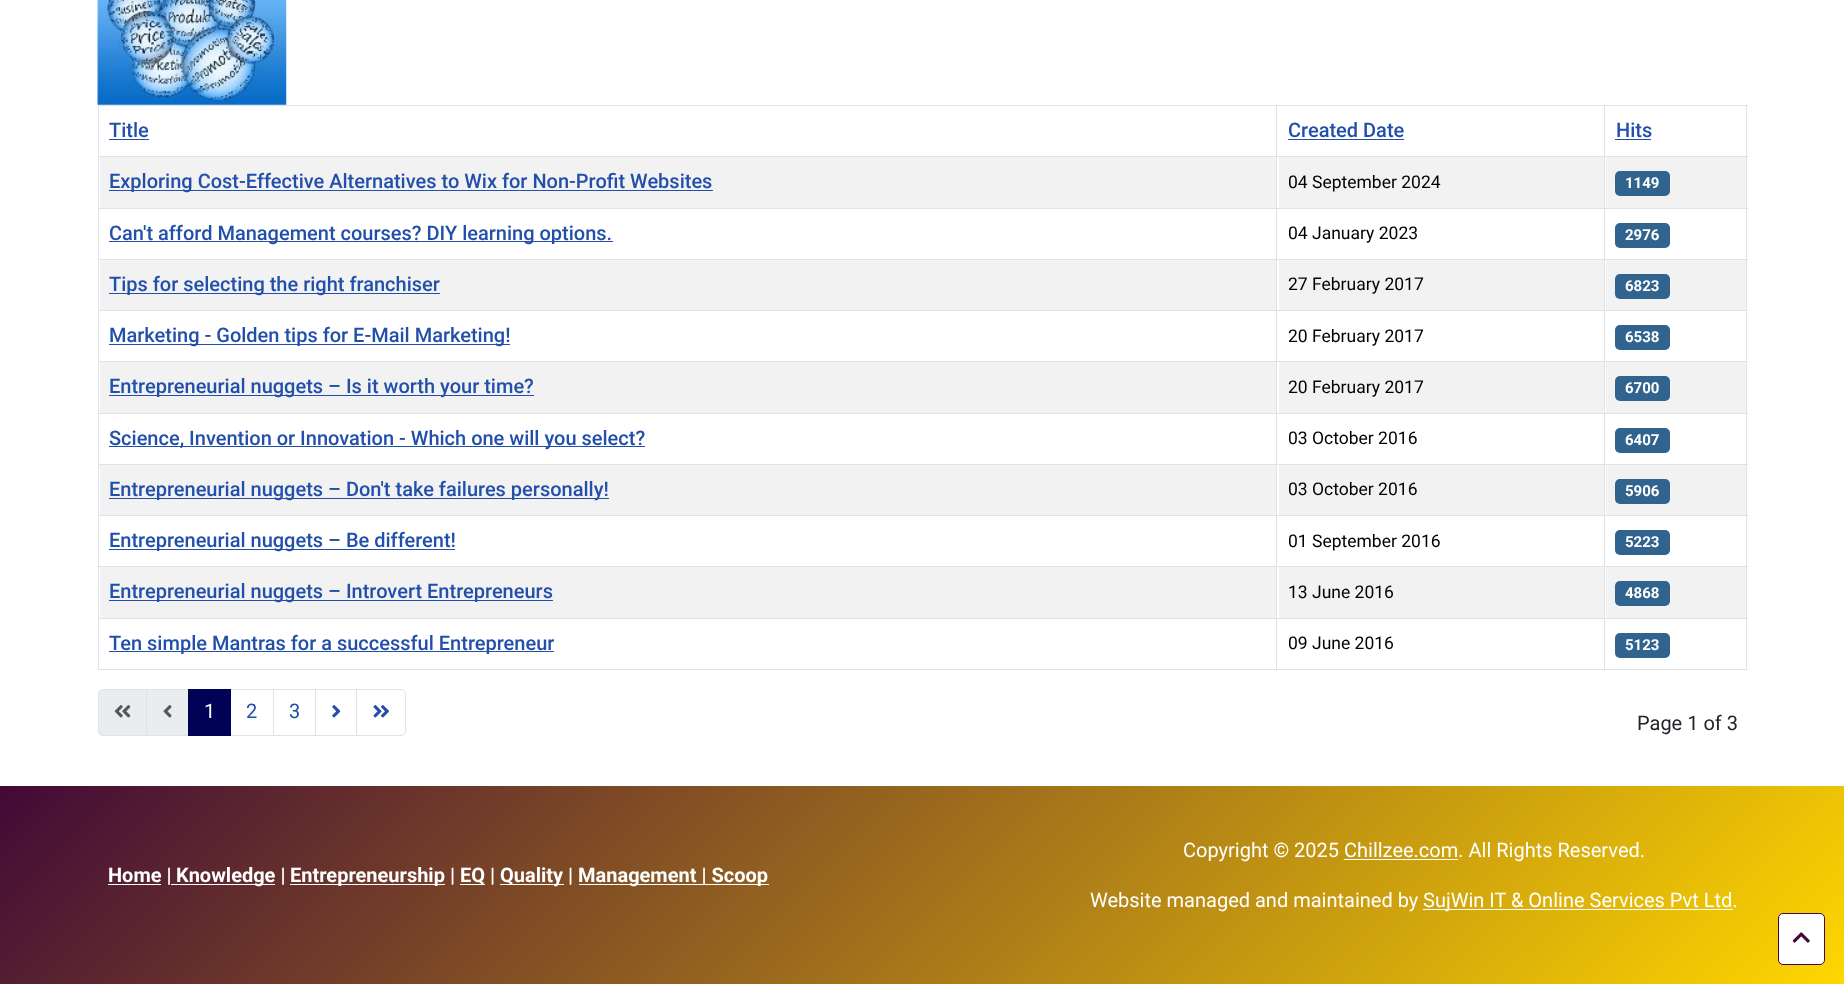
<svg xmlns="http://www.w3.org/2000/svg" width="1844" height="984" viewBox="0 0 1844 984">
  <defs>
    <linearGradient id="g1" gradientUnits="userSpaceOnUse" x1="411" y1="375" x2="1434" y2="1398"><stop offset="0" stop-color="#420937"/><stop offset="1" stop-color="#ffd700"/></linearGradient>
  </defs>
  <rect width="100%" height="100%" fill="#ffffff"/>
  <image x="97" y="0" width="190" height="105" href="img1.png"/>
  <rect x="98" y="105" width="1650" height="1" fill="#dfe3e7"/>
  <text x="109" y="137" font-family="Roboto" font-size="20" font-weight="500" fill="#224faa">Title</text>
  <rect x="109" y="139" width="40" height="1" fill="#224faa"/>
  <text x="1288" y="137" font-family="Roboto" font-size="20" font-weight="500" fill="#224faa">Created Date</text>
  <rect x="1288" y="139" width="116" height="1" fill="#224faa"/>
  <text x="1616" y="137" font-family="Roboto" font-size="20" font-weight="500" fill="#224faa">Hits</text>
  <rect x="1615" y="139" width="36" height="1" fill="#224faa"/>
  <rect x="98" y="156" width="1650" height="1" fill="#dfe3e7"/>
  <rect x="100" y="157" width="1176" height="51" fill="#f2f2f2"/>
  <rect x="109" y="190" width="604" height="1" fill="#224faa"/>
  <text x="109" y="188" font-family="Roboto" font-size="20" font-weight="500" fill="#224faa">Exploring Cost-Effective Alternatives to Wix for Non-Profit Websites</text>
  <rect x="1279" y="157" width="325" height="51" fill="#f2f2f2"/>
  <text x="1288" y="188" font-family="Roboto" font-size="17.5" fill="#000000">04 September 2024</text>
  <rect x="1606" y="157" width="140" height="51" fill="#f2f2f2"/>
  <rect x="1615" y="171" width="55" height="25" rx="5" fill="#30638d"/>
  <text x="1625" y="188" font-family="Roboto" font-size="15" font-weight="bold" fill="#ffffff">1149</text>
  <rect x="98" y="208" width="1650" height="1" fill="#dfe3e7"/>
  <rect x="109" y="241" width="504" height="1" fill="#224faa"/>
  <text x="109" y="240" font-family="Roboto" font-size="20" font-weight="500" fill="#224faa">Can't afford Management courses? DIY learning options.</text>
  <text x="1288" y="239" font-family="Roboto" font-size="17.5" fill="#000000">04 January 2023</text>
  <rect x="1615" y="223" width="55" height="25" rx="5" fill="#30638d"/>
  <text x="1625" y="240" font-family="Roboto" font-size="15" font-weight="bold" fill="#ffffff">2976</text>
  <rect x="98" y="259" width="1650" height="1" fill="#dfe3e7"/>
  <rect x="100" y="260" width="1176" height="50" fill="#f2f2f2"/>
  <rect x="109" y="293" width="331" height="1" fill="#224faa"/>
  <text x="109" y="291" font-family="Roboto" font-size="20" font-weight="500" fill="#224faa">Tips for selecting the right franchiser</text>
  <rect x="1279" y="260" width="325" height="50" fill="#f2f2f2"/>
  <text x="1288" y="290" font-family="Roboto" font-size="17.5" fill="#000000">27 February 2017</text>
  <rect x="1606" y="260" width="140" height="50" fill="#f2f2f2"/>
  <rect x="1615" y="274" width="55" height="25" rx="5" fill="#30638d"/>
  <text x="1625" y="291" font-family="Roboto" font-size="15" font-weight="bold" fill="#ffffff">6823</text>
  <rect x="98" y="310" width="1650" height="1" fill="#dfe3e7"/>
  <rect x="109" y="344" width="401" height="1" fill="#224faa"/>
  <text x="109" y="342" font-family="Roboto" font-size="20" font-weight="500" fill="#224faa">Marketing - Golden tips for E-Mail Marketing!</text>
  <text x="1288" y="342" font-family="Roboto" font-size="17.5" fill="#000000">20 February 2017</text>
  <rect x="1615" y="325" width="55" height="25" rx="5" fill="#30638d"/>
  <text x="1625" y="342" font-family="Roboto" font-size="15" font-weight="bold" fill="#ffffff">6538</text>
  <rect x="98" y="361" width="1650" height="1" fill="#dfe3e7"/>
  <rect x="100" y="362" width="1176" height="51" fill="#f2f2f2"/>
  <rect x="109" y="395" width="425" height="1" fill="#224faa"/>
  <text x="109" y="393" font-family="Roboto" font-size="20" font-weight="500" fill="#224faa">Entrepreneurial nuggets – Is it worth your time?</text>
  <rect x="1279" y="362" width="325" height="51" fill="#f2f2f2"/>
  <text x="1288" y="393" font-family="Roboto" font-size="17.5" fill="#000000">20 February 2017</text>
  <rect x="1606" y="362" width="140" height="51" fill="#f2f2f2"/>
  <rect x="1615" y="376" width="55" height="25" rx="5" fill="#30638d"/>
  <text x="1625" y="393" font-family="Roboto" font-size="15" font-weight="bold" fill="#ffffff">6700</text>
  <rect x="98" y="413" width="1650" height="1" fill="#dfe3e7"/>
  <rect x="109" y="446" width="536" height="1" fill="#224faa"/>
  <text x="109" y="445" font-family="Roboto" font-size="20" font-weight="500" fill="#224faa">Science, Invention or Innovation - Which one will you select?</text>
  <text x="1288" y="444" font-family="Roboto" font-size="17.5" fill="#000000">03 October 2016</text>
  <rect x="1615" y="428" width="55" height="25" rx="5" fill="#30638d"/>
  <text x="1625" y="445" font-family="Roboto" font-size="15" font-weight="bold" fill="#ffffff">6407</text>
  <rect x="98" y="464" width="1650" height="1" fill="#dfe3e7"/>
  <rect x="100" y="465" width="1176" height="50" fill="#f2f2f2"/>
  <rect x="109" y="498" width="500" height="1" fill="#224faa"/>
  <text x="109" y="496" font-family="Roboto" font-size="20" font-weight="500" fill="#224faa">Entrepreneurial nuggets – Don't take failures personally!</text>
  <rect x="1279" y="465" width="325" height="50" fill="#f2f2f2"/>
  <text x="1288" y="495" font-family="Roboto" font-size="17.5" fill="#000000">03 October 2016</text>
  <rect x="1606" y="465" width="140" height="50" fill="#f2f2f2"/>
  <rect x="1615" y="479" width="55" height="25" rx="5" fill="#30638d"/>
  <text x="1625" y="496" font-family="Roboto" font-size="15" font-weight="bold" fill="#ffffff">5906</text>
  <rect x="98" y="515" width="1650" height="1" fill="#dfe3e7"/>
  <rect x="109" y="549" width="346" height="1" fill="#224faa"/>
  <text x="109" y="547" font-family="Roboto" font-size="20" font-weight="500" fill="#224faa">Entrepreneurial nuggets – Be different!</text>
  <text x="1288" y="547" font-family="Roboto" font-size="17.5" fill="#000000">01 September 2016</text>
  <rect x="1615" y="530" width="55" height="25" rx="5" fill="#30638d"/>
  <text x="1625" y="547" font-family="Roboto" font-size="15" font-weight="bold" fill="#ffffff">5223</text>
  <rect x="98" y="566" width="1650" height="1" fill="#dfe3e7"/>
  <rect x="100" y="567" width="1176" height="51" fill="#f2f2f2"/>
  <rect x="109" y="600" width="444" height="1" fill="#224faa"/>
  <text x="109" y="598" font-family="Roboto" font-size="20" font-weight="500" fill="#224faa">Entrepreneurial nuggets – Introvert Entrepreneurs</text>
  <rect x="1279" y="567" width="325" height="51" fill="#f2f2f2"/>
  <text x="1288" y="598" font-family="Roboto" font-size="17.5" fill="#000000">13 June 2016</text>
  <rect x="1606" y="567" width="140" height="51" fill="#f2f2f2"/>
  <rect x="1615" y="581" width="55" height="25" rx="5" fill="#30638d"/>
  <text x="1625" y="598" font-family="Roboto" font-size="15" font-weight="bold" fill="#ffffff">4868</text>
  <rect x="98" y="618" width="1650" height="1" fill="#dfe3e7"/>
  <rect x="98" y="669" width="1650" height="1" fill="#dfe3e7"/>
  <rect x="98" y="105" width="1" height="565" fill="#dfe3e7"/>
  <rect x="109" y="651" width="445" height="1" fill="#224faa"/>
  <text x="109" y="650" font-family="Roboto" font-size="20" font-weight="500" fill="#224faa">Ten simple Mantras for a successful Entrepreneur</text>
  <rect x="1276" y="105" width="1" height="565" fill="#dfe3e7"/>
  <text x="1288" y="649" font-family="Roboto" font-size="17.5" fill="#000000">09 June 2016</text>
  <rect x="1746" y="105" width="1" height="565" fill="#dfe3e7"/>
  <rect x="1604" y="105" width="1" height="565" fill="#dfe3e7"/>
  <rect x="1615" y="633" width="55" height="25" rx="5" fill="#30638d"/>
  <text x="1625" y="650" font-family="Roboto" font-size="15" font-weight="bold" fill="#ffffff">5123</text>
  <path d="M103 689.5H147.5V735.5H103C100.5 735.5 98.5 733.5 98.5 731V694C98.5 691.5 100.5 689.5 103 689.5Z" fill="#eaedf0" stroke="#dfe3e7"/>
  <image x="114" y="705" width="17" height="13" href="img2.png"/>
  <rect x="146.5" y="689.5" width="42" height="46" fill="#eaedf0" stroke="#dfe3e7"/>
  <image x="163" y="705" width="9" height="13" href="img3.png"/>
  <rect x="230.5" y="689.5" width="43" height="46" fill="none" stroke="#dfe3e7"/>
  <rect x="188" y="689" width="43" height="47" fill="#010156"/>
  <text x="204" y="718" font-family="Roboto" font-size="20" fill="#ffffff">1</text>
  <text x="246" y="718" font-family="Roboto" font-size="20" fill="#224faa">2</text>
  <rect x="273.5" y="689.5" width="42" height="46" fill="none" stroke="#dfe3e7"/>
  <text x="289" y="718" font-family="Roboto" font-size="20" fill="#224faa">3</text>
  <rect x="315.5" y="689.5" width="42" height="46" fill="none" stroke="#dfe3e7"/>
  <image x="332" y="705" width="9" height="13" href="img4.png"/>
  <path d="M356.5 689.5H401C403.5 689.5 405.5 691.5 405.5 694V731C405.5 733.5 403.5 735.5 401 735.5H356.5Z" fill="#ffffff" stroke="#dfe3e7"/>
  <image x="373" y="705" width="16" height="13" href="img5.png"/>
  <text x="1637" y="730" font-family="Roboto" font-size="20" fill="#22262a">Page 1 of 3</text>
  <rect x="0" y="786" width="1844" height="198" fill="url(#g1)"/>
  <rect x="108" y="884" width="53" height="1" fill="#ffffff"/>
  <text x="108" y="882" font-family="Roboto" font-size="20" font-weight="bold" fill="#ffffff">Home |</text>
  <rect x="171" y="884" width="104" height="1" fill="#ffffff"/>
  <text x="176" y="882" font-family="Roboto" font-size="20" font-weight="bold" fill="#ffffff">Knowledge |</text>
  <rect x="290" y="884" width="155" height="1" fill="#ffffff"/>
  <text x="290" y="882" font-family="Roboto" font-size="20" font-weight="bold" fill="#ffffff">Entrepreneurship |</text>
  <rect x="460" y="884" width="25" height="1" fill="#ffffff"/>
  <text x="460" y="882" font-family="Roboto" font-size="20" font-weight="bold" fill="#ffffff">EQ |</text>
  <rect x="500" y="884" width="64" height="1" fill="#ffffff"/>
  <text x="500" y="882" font-family="Roboto" font-size="20" font-weight="bold" fill="#ffffff">Quality |</text>
  <rect x="579" y="884" width="190" height="1" fill="#ffffff"/>
  <text x="578" y="882" font-family="Roboto" font-size="20" font-weight="bold" fill="#ffffff">Management | Scoop</text>
  <text x="1183" y="857" font-family="Roboto" font-size="20" fill="#ffffff">Copyright © 2025 Chillzee.com. All Rights Reserved.</text>
  <rect x="1344" y="859" width="114" height="1" fill="#ffffff"/>
  <text x="1090" y="907" font-family="Roboto" font-size="20" fill="#ffffff">Website managed and maintained by</text>
  <rect x="1423" y="909" width="310" height="1" fill="#ffffff"/>
  <text x="1423" y="907" font-family="Roboto" font-size="20" fill="#ffffff">SujWin IT &amp; Online Services Pvt Ltd.</text>
  <rect x="1778.5" y="913.5" width="46" height="51" rx="4.5" fill="#ffffff" stroke="#420937"/>
  <image x="1792" y="932" width="18" height="11" href="img6.png"/>
</svg>
